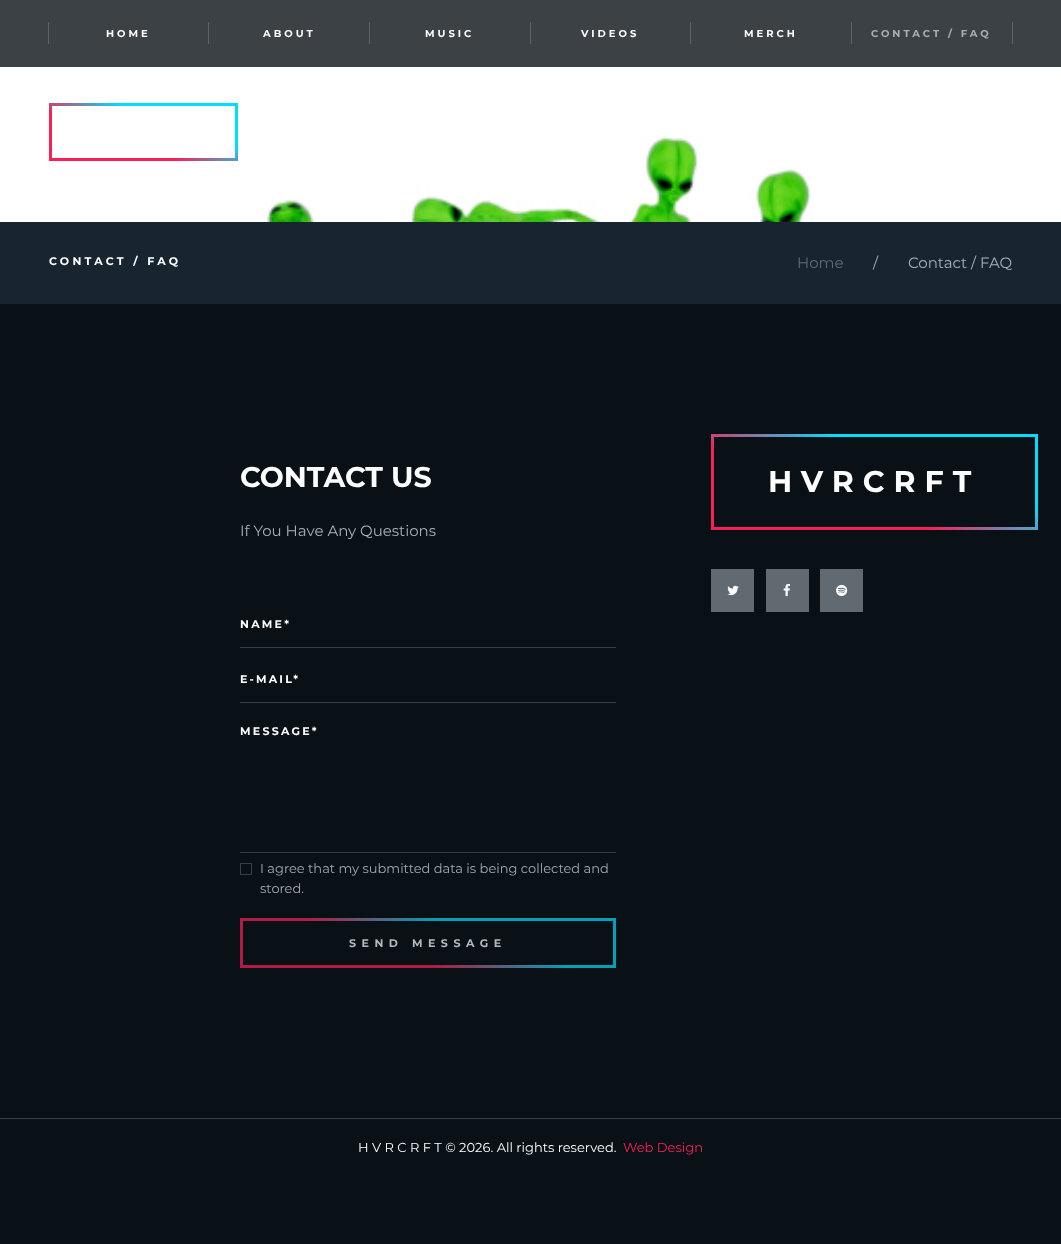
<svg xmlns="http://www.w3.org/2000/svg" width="1061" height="1244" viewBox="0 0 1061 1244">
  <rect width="100%" height="100%" fill="#0a1116"/>
  <image x="0" y="67" width="1061" height="155" href="img1.png"/>
  <rect x="0" y="0" width="1061" height="67" fill="#3b4145"/>
  <rect x="208" y="22" width="1" height="22" fill="#5b6268"/>
  <rect x="48" y="22" width="1" height="22" fill="#5b6268"/>
  <text x="106" y="37" font-family="Montserrat" font-size="10" font-weight="bold" letter-spacing="3" fill="#ffffff">HOME</text>
  <rect x="369" y="22" width="1" height="22" fill="#5b6268"/>
  <text x="263" y="37" font-family="Montserrat" font-size="10" font-weight="bold" letter-spacing="3" fill="#ffffff">ABOUT</text>
  <rect x="530" y="22" width="1" height="22" fill="#5b6268"/>
  <text x="425" y="37" font-family="Montserrat" font-size="10" font-weight="bold" letter-spacing="3" fill="#ffffff">MUSIC</text>
  <rect x="690" y="22" width="1" height="22" fill="#5b6268"/>
  <text x="581" y="37" font-family="Montserrat" font-size="10" font-weight="bold" letter-spacing="3" fill="#ffffff">VIDEOS</text>
  <rect x="851" y="22" width="1" height="22" fill="#5b6268"/>
  <text x="744" y="37" font-family="Montserrat" font-size="10" font-weight="bold" letter-spacing="3" fill="#ffffff">MERCH</text>
  <rect x="1012" y="22" width="1" height="22" fill="#5b6268"/>
  <text x="871" y="37" font-family="Montserrat" font-size="10" font-weight="bold" letter-spacing="3" fill="#a6b0b9">CONTACT / FAQ</text>
  <image x="49" y="103" width="189" height="58" href="img2.png"/>
  <rect x="0" y="222" width="1061" height="82" fill="#182530"/>
  <text x="49" y="265" font-family="Montserrat" font-size="11" font-weight="bold" letter-spacing="3.25" fill="#ffffff">CONTACT / FAQ</text>
  <text x="797" y="268" font-family="Montserrat" font-size="15" fill="#626a71">Home</text>
  <text x="873" y="268" font-family="Montserrat" font-size="15" fill="#a6b0b9">/</text>
  <text x="908" y="268" font-family="Montserrat" font-size="15" fill="#a6b0b9">Contact / FAQ</text>
  <text x="240" y="487" font-family="Montserrat" font-size="28.5" font-weight="bold" fill="#ffffff">CONTACT US</text>
  <text x="240" y="536" font-family="Montserrat" font-size="15" fill="#a6b0b9">If You Have Any Questions</text>
  <rect x="240" y="647" width="376" height="1" fill="#33414c"/>
  <text x="240" y="628" font-family="Montserrat" font-size="11" font-weight="bold" letter-spacing="2.25" fill="#ffffff">NAME*</text>
  <rect x="240" y="702" width="376" height="1" fill="#33414c"/>
  <text x="240" y="683" font-family="Montserrat" font-size="11" font-weight="bold" letter-spacing="2.25" fill="#ffffff">E-MAIL*</text>
  <rect x="240" y="852" width="376" height="1" fill="#33414c"/>
  <text x="240" y="735" font-family="Montserrat" font-size="11" font-weight="bold" letter-spacing="2.25" fill="#ffffff">MESSAGE*</text>
  <rect x="240.5" y="863.5" width="11" height="11" fill="none" stroke="#33414c"/>
  <text x="260" y="873" font-family="Montserrat" font-size="13" fill="#9fa9b1">I agree that my submitted data is being collected and</text>
  <text x="260" y="893" font-family="Montserrat" font-size="13" fill="#9fa9b1">stored.</text>
  <image x="240" y="918" width="376" height="50" href="img3.png"/>
  <text x="349" y="947" font-family="Montserrat" font-size="11" font-weight="bold" letter-spacing="5.5" fill="#b6b8b9">SEND MESSAGE</text>
  <image x="711" y="434" width="327" height="96" href="img4.png"/>
  <text x="768" y="492" font-family="Montserrat" font-size="30" font-weight="bold" letter-spacing="9" fill="#ffffff">HVRCRFT</text>
  <rect x="711" y="569" width="43" height="43" fill="#626a71"/>
  <image x="727" y="585" width="12" height="11" href="img5.png"/>
  <rect x="766" y="569" width="43" height="43" fill="#626a71"/>
  <image x="783" y="583" width="7" height="13" href="img6.png"/>
  <rect x="820" y="569" width="43" height="43" fill="#626a71"/>
  <image x="836" y="584" width="12" height="12" href="img7.png"/>
  <rect x="0" y="1118" width="1061" height="1" fill="#33414c"/>
  <text x="358" y="1152" font-family="Montserrat" font-size="13" fill="#ffffff">H V R C R F T © 2026. All rights reserved.</text>
  <text x="623" y="1152" font-family="Montserrat" font-size="13" fill="#f92056">Web Design</text>
</svg>
